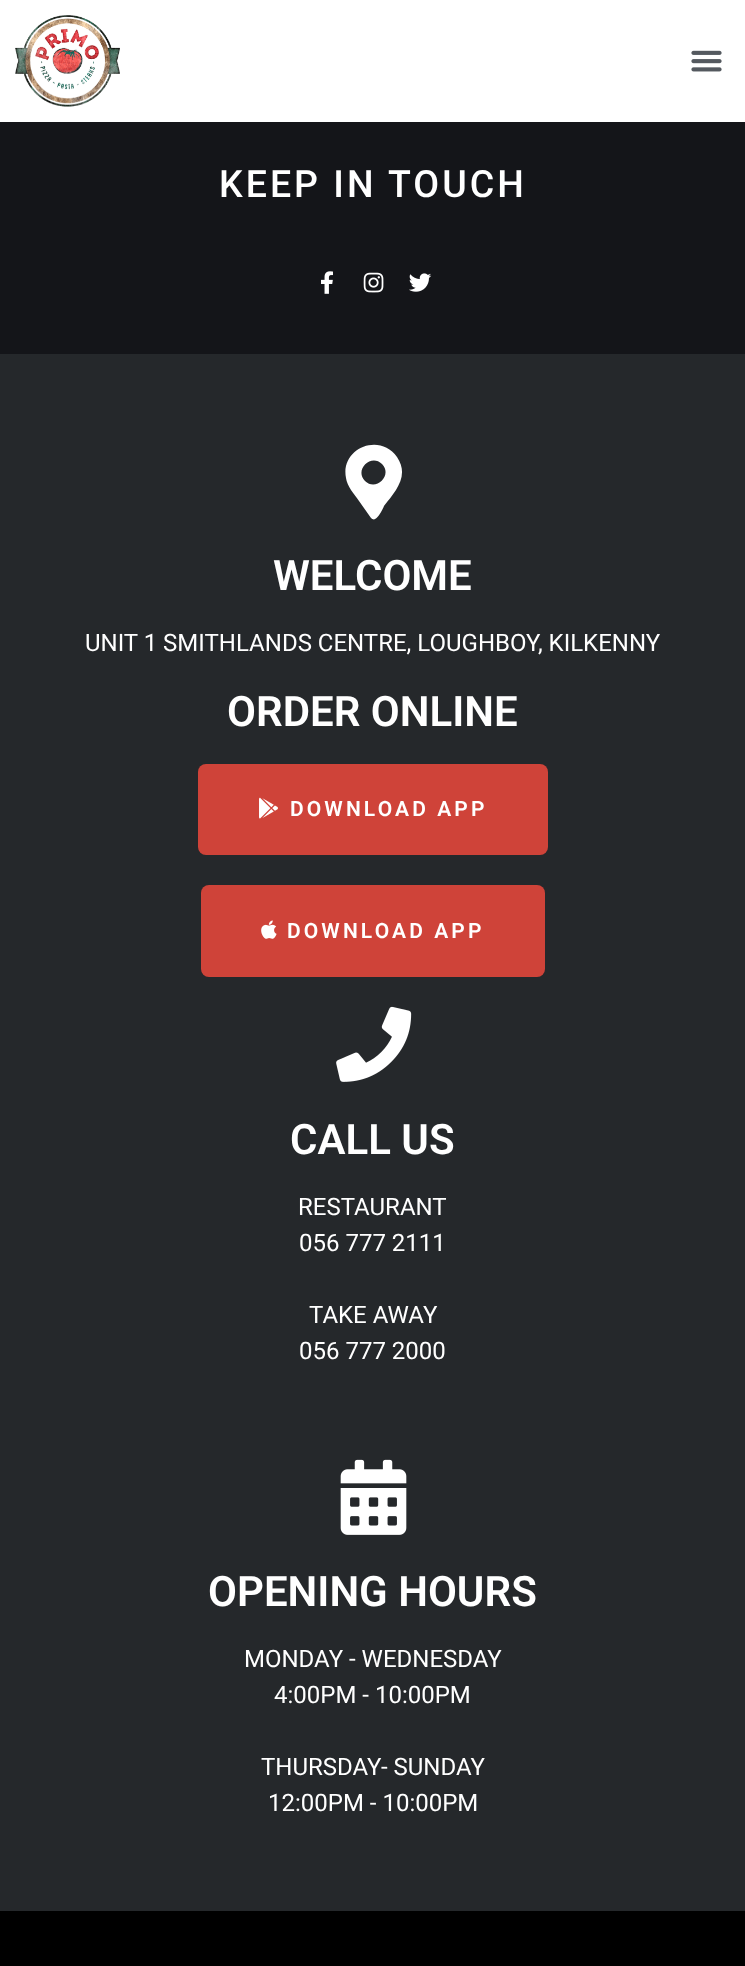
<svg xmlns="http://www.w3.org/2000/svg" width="745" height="1966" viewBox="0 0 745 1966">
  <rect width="100%" height="100%" fill="#141519"/>
  <rect x="0" y="0" width="745" height="122" fill="#ffffff"/>
  <image x="15" y="15" width="105" height="92" href="img1.png"/>
  <image x="691" y="50" width="31" height="22" href="img2.png"/>
  <text x="219" y="197" font-family="Roboto" font-size="37.5" font-weight="500" letter-spacing="3" fill="#ffffff">KEEP IN TOUCH</text>
  <image x="321" y="271" width="12" height="23" href="img3.png"/>
  <image x="363" y="272" width="21" height="21" href="img4.png"/>
  <image x="409" y="273" width="23" height="19" href="img5.png"/>
  <rect x="0" y="354" width="745" height="1557" fill="#25282b"/>
  <path d="M371 518L359 501C354 494 347 486 346 478C340 448 380 432 397 457C410 476 395 492 384 506C383 509 378 518 375 519C374 520 372 519 371 518ZM365 481C376 492 393 475 382 464C371 453 354 470 365 481Z" fill="#ffffff"/>
  <text x="273" y="590" font-family="Roboto" font-size="42" font-weight="600" fill="#ffffff">WELCOME</text>
  <text x="85" y="651" font-family="Roboto" font-size="24" fill="#ffffff">UNIT 1 SMITHLANDS CENTRE, LOUGHBOY, KILKENNY</text>
  <text x="227" y="726" font-family="Roboto" font-size="42" font-weight="600" fill="#ffffff">ORDER ONLINE</text>
  <rect x="198" y="764" width="350" height="91" rx="8" fill="#cf4339"/>
  <image x="259" y="797" width="19" height="22" href="img6.png"/>
  <text x="290" y="816" font-family="Roboto" font-size="21" font-weight="600" letter-spacing="3.1" fill="#ffffff">DOWNLOAD APP</text>
  <rect x="201" y="885" width="344" height="92" rx="8" fill="#cf4339"/>
  <image x="261" y="920" width="16" height="19" href="img7.png"/>
  <text x="287" y="938" font-family="Roboto" font-size="21" font-weight="600" letter-spacing="3.1" fill="#ffffff">DOWNLOAD APP</text>
  <image x="336" y="1006" width="76" height="76" href="img8.png"/>
  <text x="290" y="1154" font-family="Roboto" font-size="42" font-weight="600" fill="#ffffff">CALL US</text>
  <text x="298" y="1215" font-family="Roboto" font-size="24" fill="#ffffff">RESTAURANT</text>
  <text x="299" y="1251" font-family="Roboto" font-size="24" fill="#ffffff">056 777 2111</text>
  <text x="309" y="1323" font-family="Roboto" font-size="24" fill="#ffffff">TAKE AWAY</text>
  <text x="299" y="1359" font-family="Roboto" font-size="24" fill="#ffffff">056 777 2000</text>
  <image x="340" y="1459" width="67" height="76" href="img9.png"/>
  <text x="208" y="1606" font-family="Roboto" font-size="42" font-weight="600" fill="#ffffff">OPENING HOURS</text>
  <text x="244" y="1667" font-family="Roboto" font-size="24" fill="#ffffff">MONDAY - WEDNESDAY</text>
  <text x="274" y="1703" font-family="Roboto" font-size="24" fill="#ffffff">4:00PM - 10:00PM</text>
  <text x="261" y="1775" font-family="Roboto" font-size="24" fill="#ffffff">THURSDAY- SUNDAY</text>
  <text x="268" y="1811" font-family="Roboto" font-size="24" fill="#ffffff">12:00PM - 10:00PM</text>
  <rect x="0" y="1911" width="745" height="55" fill="#000000"/>
</svg>
